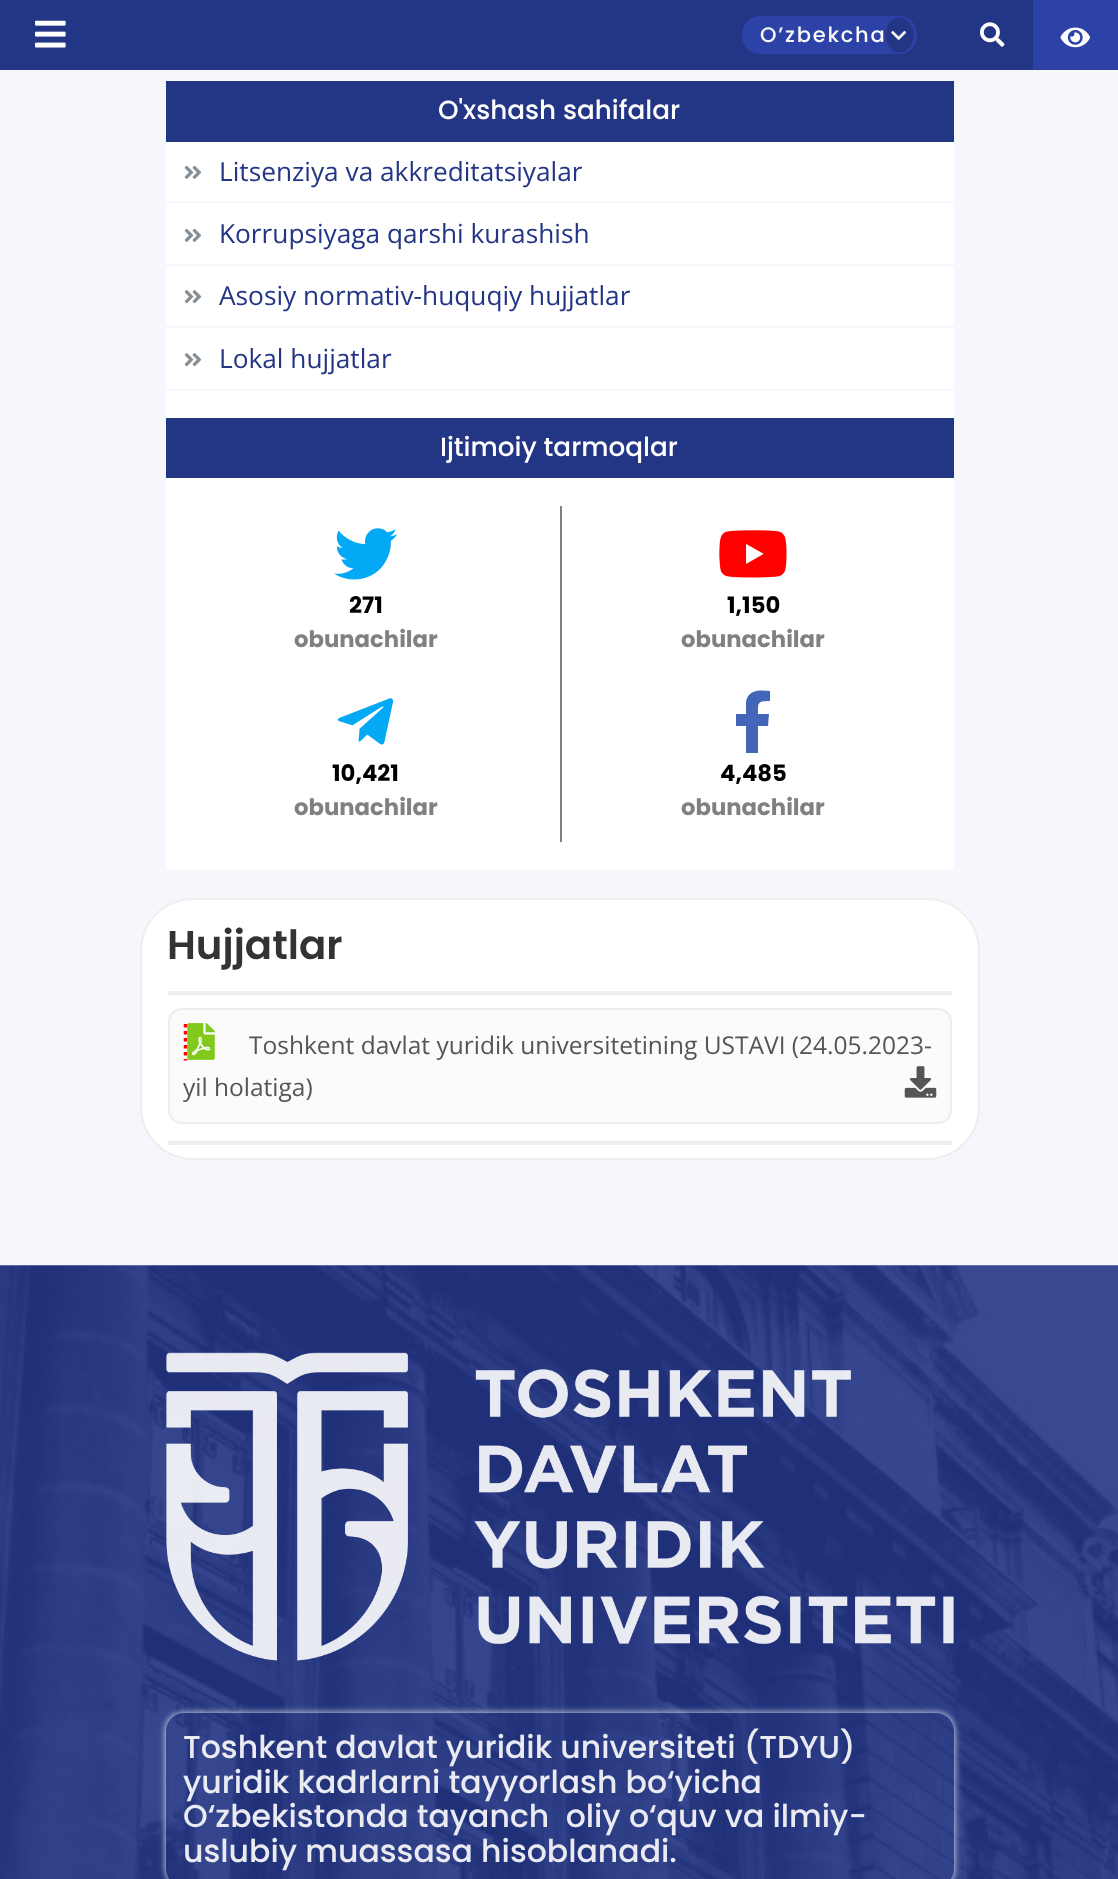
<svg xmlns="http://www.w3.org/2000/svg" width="1118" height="1879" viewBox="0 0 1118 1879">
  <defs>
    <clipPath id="clip1"><path d="M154 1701H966V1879H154ZM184 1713H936C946 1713 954 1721 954 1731V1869C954 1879 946 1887 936 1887H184C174 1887 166 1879 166 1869V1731C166 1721 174 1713 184 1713Z" clip-rule="evenodd"/></clipPath>
    <filter id="blur1" x="-50%" y="-200%" width="200%" height="500%"><feGaussianBlur stdDeviation="3.5"/></filter>
  </defs>
  <rect width="100%" height="100%" fill="#f6f7fd"/>
  <rect x="0" y="0" width="1033" height="70" fill="#233585"/>
  <image x="35" y="20" width="31" height="28" href="img1.png"/>
  <rect x="742" y="16" width="175" height="38" rx="18" fill="#2c42a6"/>
  <text x="760" y="42" font-family="Poppins" font-size="21" font-weight="500" letter-spacing="1.75" fill="#f8f8f8">Oʼzbekcha</text>
  <ellipse cx="899.5" cy="35" rx="14" ry="17.5" fill="#233585"/>
  <image x="891" y="31" width="15" height="9" href="img2.png"/>
  <image x="980" y="22" width="25" height="25" href="img3.png"/>
  <rect x="1033" y="0" width="85" height="70" fill="#2c42a6"/>
  <image x="1060" y="27" width="30" height="21" href="img4.png"/>
  <rect x="166" y="142" width="788" height="728" fill="#ffffff"/>
  <rect x="166" y="81" width="788" height="61" fill="#233585"/>
  <text x="438" y="119" font-family="Poppins" font-size="26.25" font-weight="500" fill="#ffffff">O'xshash sahifalar</text>
  <rect x="166" y="201" width="788" height="2" fill="#f6f7fd"/>
  <image x="184" y="165" width="18" height="14" href="img5.png"/>
  <text x="219" y="181" font-family="Open Sans" font-size="26.25" fill="#233585">Litsenziya va akkreditatsiyalar</text>
  <rect x="166" y="264" width="788" height="2" fill="#f6f7fd"/>
  <image x="184" y="228" width="18" height="14" href="img5.png"/>
  <text x="219" y="243" font-family="Open Sans" font-size="26.25" fill="#233585">Korrupsiyaga qarshi kurashish</text>
  <rect x="166" y="326" width="788" height="2" fill="#f6f7fd"/>
  <image x="184" y="290" width="18" height="14" href="img6.png"/>
  <text x="219" y="305" font-family="Open Sans" font-size="26.25" fill="#233585">Asosiy normativ-huquqiy hujjatlar</text>
  <rect x="166" y="389" width="788" height="2" fill="#f6f7fd"/>
  <image x="184" y="353" width="18" height="14" href="img6.png"/>
  <text x="219" y="368" font-family="Open Sans" font-size="26.25" fill="#233585">Lokal hujjatlar</text>
  <rect x="166" y="418" width="788" height="60" fill="#233585"/>
  <text x="440" y="456" font-family="Poppins" font-size="26.25" font-weight="500" fill="#ffffff">Ijtimoiy tarmoqlar</text>
  <image x="334" y="528" width="64" height="52" href="img7.png"/>
  <text x="349" y="613" font-family="Poppins" font-size="22.75" font-weight="bold" fill="#000000">271</text>
  <text x="294" y="647" font-family="Poppins" font-size="22.75" font-weight="bold" fill="#808080">obunachilar</text>
  <rect x="560" y="506" width="2" height="336" fill="#808080"/>
  <image x="719" y="530" width="68" height="48" href="img8.png"/>
  <text x="727" y="613" font-family="Poppins" font-size="22.75" font-weight="bold" fill="#000000">1,150</text>
  <text x="681" y="647" font-family="Poppins" font-size="22.75" font-weight="bold" fill="#808080">obunachilar</text>
  <image x="337" y="698" width="56" height="47" href="img9.png"/>
  <text x="332" y="781" font-family="Poppins" font-size="22.75" font-weight="bold" fill="#000000">10,421</text>
  <text x="294" y="815" font-family="Poppins" font-size="22.75" font-weight="bold" fill="#808080">obunachilar</text>
  <path d="M768 726H758V753H746V726H736V714H746V702C748 689 760 690 770 691V701C757 701 758 703 758 714H769Z" fill="#4267b8"/>
  <text x="720" y="781" font-family="Poppins" font-size="22.75" font-weight="bold" fill="#000000">4,485</text>
  <text x="681" y="815" font-family="Poppins" font-size="22.75" font-weight="bold" fill="#808080">obunachilar</text>
  <rect x="141" y="899" width="838" height="260" rx="52" fill="#ffffff" stroke="#eeeeee" stroke-width="2"/>
  <rect x="168" y="991" width="784" height="4" fill="#eeeeee"/>
  <text x="167" y="959" font-family="Poppins" font-size="40.25" font-weight="600" fill="#333333">Hujjatlar</text>
  <rect x="169" y="1009" width="782" height="114" rx="13" fill="#fbfbfb" stroke="#eeeeee" stroke-width="2"/>
  <path d="M185.5 1024V1060.5" fill="none" stroke="#ff0000" stroke-width="3.5" stroke-dasharray="3.5 3.5"/>
  <image x="187" y="1023" width="28" height="37" href="img10.png"/>
  <text x="249" y="1054" font-family="Open Sans" font-size="24.5" fill="#555555">Toshkent davlat yuridik universitetining USTAVI (24.05.2023-</text>
  <text x="183" y="1096" font-family="Open Sans" font-size="24.5" fill="#555555">yil holatiga)</text>
  <image x="904" y="1066" width="33" height="32" href="img11.png"/>
  <rect x="168" y="1141" width="784" height="4" fill="#eeeeee"/>
  <image x="0" y="1265" width="1118" height="614" href="img12.png"/>
  <image x="166" y="1352" width="788" height="309" href="img13.png"/>
  <g clip-path="url(#clip1)">
    <rect x="166" y="1713" width="788" height="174" rx="18" fill="#ffffff" fill-opacity="0.9" filter="url(#blur1)"/>
  </g>
  <text x="183" y="1758" font-family="Poppins" font-size="31.5" font-weight="500" fill="#eaebf2">Toshkent davlat yuridik universiteti (TDYU)</text>
  <text x="183" y="1793" font-family="Poppins" font-size="31.5" font-weight="500" fill="#eaebf2">yuridik kadrlarni tayyorlash bo‘yicha</text>
  <text x="183" y="1827" font-family="Poppins" font-size="31.5" font-weight="500" fill="#eaebf2" xml:space="preserve">O‘zbekistonda tayanch  oliy o‘quv va ilmiy-</text>
  <text x="183" y="1862" font-family="Poppins" font-size="31.5" font-weight="500" fill="#eaebf2">uslubiy muassasa hisoblanadi.</text>
</svg>
